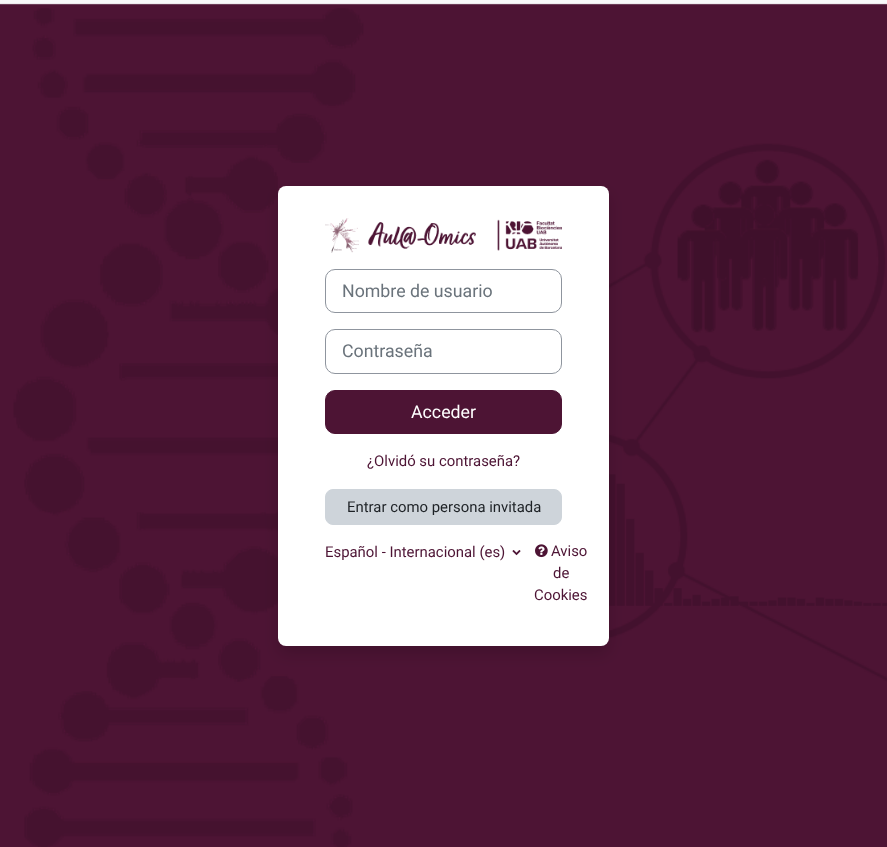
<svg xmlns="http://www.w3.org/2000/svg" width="887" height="847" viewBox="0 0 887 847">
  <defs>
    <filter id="blur1" x="-50%" y="-200%" width="200%" height="500%"><feGaussianBlur stdDeviation="8"/></filter>
  </defs>
  <rect width="100%" height="100%" fill="#f8f9fa"/>
  <image x="0" y="3" width="887" height="844" href="img1.png"/>
  <rect x="278" y="194" width="331" height="460" rx="8" fill="#000000" fill-opacity="0.15" filter="url(#blur1)"/>
  <rect x="278" y="186" width="331" height="460" rx="8" fill="#ffffff"/>
  <image x="325" y="218" width="237" height="35" href="img2.png"/>
  <rect x="325.5" y="269.5" width="236" height="43" rx="9.5" fill="none" stroke="#8f959e"/>
  <text x="342" y="297" font-family="Roboto" font-size="17.75" fill="#6a737b">Nombre de usuario</text>
  <rect x="325.5" y="329.5" width="236" height="44" rx="9.5" fill="none" stroke="#8f959e"/>
  <text x="342" y="357" font-family="Roboto" font-size="17.75" fill="#6a737b">Contraseña</text>
  <rect x="325.5" y="390.5" width="236" height="43" rx="9.5" fill="#4d1434" stroke="#4d1434"/>
  <text x="411" y="418" font-family="Roboto" font-size="17.75" fill="#ffffff">Acceder</text>
  <text x="367" y="466" font-family="Roboto" font-size="14.9" fill="#4d1434">¿Olvidó su contraseña?</text>
  <rect x="325.5" y="489.5" width="236" height="35" rx="7.5" fill="#ced4da" stroke="#ced4da"/>
  <text x="347" y="512" font-family="Roboto" font-size="14.9" fill="#1d2125">Entrar como persona invitada</text>
  <text x="325" y="557" font-family="Roboto" font-size="14.9" fill="#4d1434">Español - Internacional (es)</text>
  <image x="512" y="550" width="9" height="6" href="img3.png"/>
  <image x="535" y="544" width="13" height="14" href="img4.png"/>
  <text x="551" y="556" font-family="Roboto" font-size="14.9" fill="#4d1434">Aviso</text>
  <text x="553" y="578" font-family="Roboto" font-size="14.9" fill="#4d1434">de</text>
  <text x="534" y="600" font-family="Roboto" font-size="14.9" fill="#4d1434">Cookies</text>
</svg>
